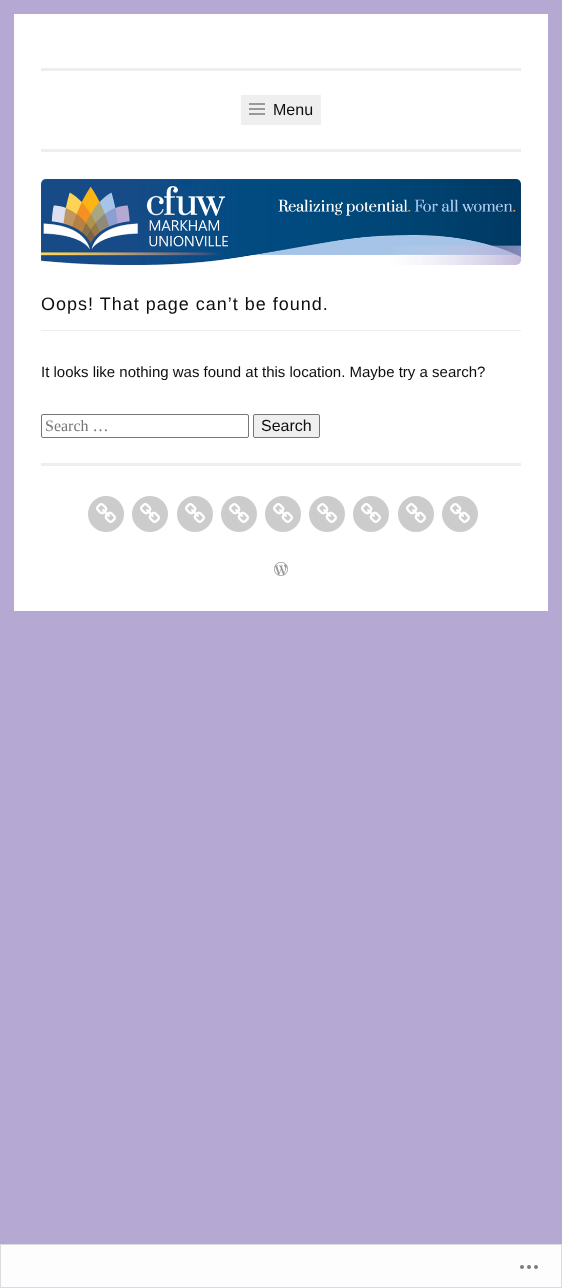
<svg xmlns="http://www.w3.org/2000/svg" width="562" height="1288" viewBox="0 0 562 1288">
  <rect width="100%" height="100%" fill="#b5a8d2"/>
  <rect x="14" y="14" width="534" height="597" fill="#ffffff"/>
  <rect x="41" y="149" width="480" height="3" fill="#eeeeee"/>
  <rect x="41" y="68" width="480" height="3" fill="#eeeeee"/>
  <rect x="241" y="95" width="80" height="30" fill="#efefef"/>
  <image x="249" y="103" width="16" height="12" href="img1.png"/>
  <text x="273" y="115" font-family="Arimo" font-size="16" fill="#0e0e10">Menu</text>
  <image x="41" y="179" width="480" height="86" href="img2.png"/>
  <rect x="41" y="330" width="480" height="1" fill="#eeeeee"/>
  <text x="41" y="310" font-family="Arimo" font-size="18" letter-spacing="1" fill="#0e0e10">Oops! That page can’t be found.</text>
  <text x="41" y="377" font-family="Arimo" font-size="15" fill="#0e0e10">It looks like nothing was found at this location. Maybe try a search?</text>
  <rect x="41.5" y="414.5" width="207" height="23" rx="1.5" fill="none" stroke="#767676"/>
  <text x="45" y="431" font-family="Liberation Serif" font-size="16" fill="#757575">Search …</text>
  <rect x="253.5" y="414.5" width="66" height="23" rx="1.5" fill="#efefef" stroke="#767676"/>
  <text x="261" y="431" font-family="Arimo" font-size="16" fill="#0e0e10">Search</text>
  <rect x="41" y="463" width="480" height="3" fill="#eeeeee"/>
  <circle cx="106" cy="514" r="18" fill="#cccccc"/>
  <image x="96" y="503" width="20" height="20" href="img3.png"/>
  <circle cx="150" cy="514" r="18" fill="#cccccc"/>
  <image x="140" y="503" width="20" height="20" href="img3.png"/>
  <circle cx="195" cy="514" r="18" fill="#cccccc"/>
  <image x="185" y="503" width="20" height="20" href="img3.png"/>
  <circle cx="239" cy="514" r="18" fill="#cccccc"/>
  <image x="229" y="503" width="20" height="20" href="img3.png"/>
  <circle cx="283" cy="514" r="18" fill="#cccccc"/>
  <image x="273" y="503" width="20" height="20" href="img3.png"/>
  <circle cx="327" cy="514" r="18" fill="#cccccc"/>
  <image x="317" y="503" width="20" height="20" href="img3.png"/>
  <circle cx="371" cy="514" r="18" fill="#cccccc"/>
  <image x="361" y="503" width="20" height="20" href="img3.png"/>
  <circle cx="416" cy="514" r="18" fill="#cccccc"/>
  <image x="406" y="503" width="20" height="20" href="img3.png"/>
  <circle cx="460" cy="514" r="18" fill="#cccccc"/>
  <image x="450" y="503" width="20" height="20" href="img3.png"/>
  <image x="274" y="562" width="14" height="14" href="img4.png"/>
  <rect x="0.5" y="1244.5" width="561" height="43" fill="#fefdfe" stroke="#dbdbde"/>
  <image x="520" y="1265" width="18" height="4" href="img5.png"/>
</svg>
